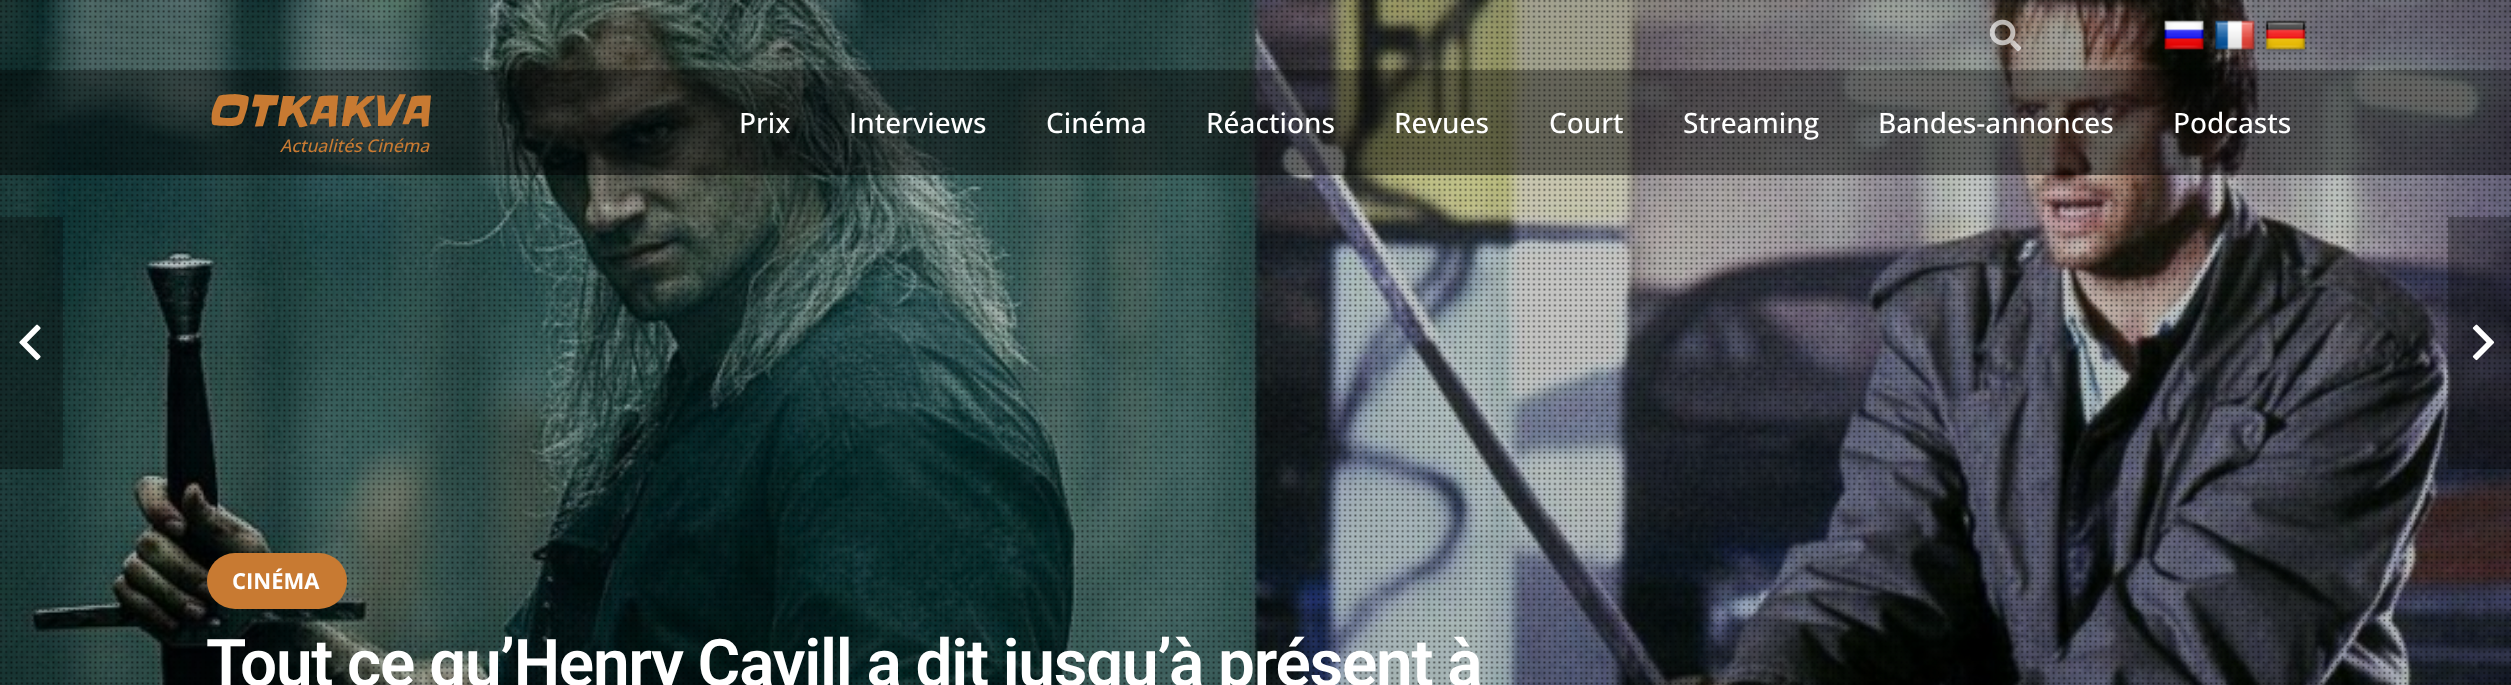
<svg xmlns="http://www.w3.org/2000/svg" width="2511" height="685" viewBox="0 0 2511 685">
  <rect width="100%" height="100%" fill="#ffffff"/>
  <image x="0" y="0" width="2511" height="685" href="img7.png"/>
  <image x="0" y="0" width="2511" height="685" href="img8.png"/>
  <rect x="0" y="0" width="2511" height="70" fill="#000000" fill-opacity="0.2"/>
  <image x="1989" y="19" width="33" height="33" href="img1.png"/>
  <image x="2164" y="20" width="40" height="30" href="img2.png"/>
  <image x="2215" y="20" width="41" height="33" href="img3.png"/>
  <image x="2264" y="20" width="43" height="33" href="img4.png"/>
  <rect x="0" y="70" width="2511" height="105" fill="#000000" fill-opacity="0.5"/>
  <text x="206" y="126" font-family="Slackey" font-size="42" font-style="italic" fill="#c87a32">OTKAKVA</text>
  <text x="280" y="152" font-family="Open Sans" font-size="17.5" font-weight="500" font-style="italic" fill="#c87a32">Actualités Cinéma</text>
  <text x="739" y="133" font-family="Open Sans" font-size="28" font-weight="500" fill="#ffffff">Prix</text>
  <text x="849" y="133" font-family="Open Sans" font-size="28" font-weight="500" fill="#ffffff">Interviews</text>
  <text x="1046" y="133" font-family="Open Sans" font-size="28" font-weight="500" fill="#ffffff">Cinéma</text>
  <text x="1206" y="133" font-family="Open Sans" font-size="28" font-weight="500" fill="#ffffff">Réactions</text>
  <text x="1394" y="133" font-family="Open Sans" font-size="28" font-weight="500" fill="#ffffff">Revues</text>
  <text x="1549" y="133" font-family="Open Sans" font-size="28" font-weight="500" fill="#ffffff">Court</text>
  <text x="1683" y="133" font-family="Open Sans" font-size="28" font-weight="500" fill="#ffffff">Streaming</text>
  <text x="1878" y="133" font-family="Open Sans" font-size="28" font-weight="500" fill="#ffffff">Bandes-annonces</text>
  <text x="2173" y="133" font-family="Open Sans" font-size="28" font-weight="500" fill="#ffffff">Podcasts</text>
  <rect x="0" y="217" width="63" height="252" fill="#000000" fill-opacity="0.3"/>
  <image x="19" y="324" width="22" height="37" href="img5.png"/>
  <rect x="2448" y="217" width="63" height="252" fill="#000000" fill-opacity="0.3"/>
  <image x="2472" y="324" width="23" height="37" href="img6.png"/>
  <rect x="207" y="553" width="140" height="56" rx="28" fill="#c87a32"/>
  <text x="232" y="589" font-family="Open Sans" font-size="22" font-weight="bold" fill="#ffffff">CINÉMA</text>
  <text x="206" y="686" font-family="Roboto" font-size="65.7" font-weight="600" letter-spacing="-1.3" fill="#ffffff">Tout ce qu’Henry Cavill a dit jusqu’à présent à</text>
</svg>
